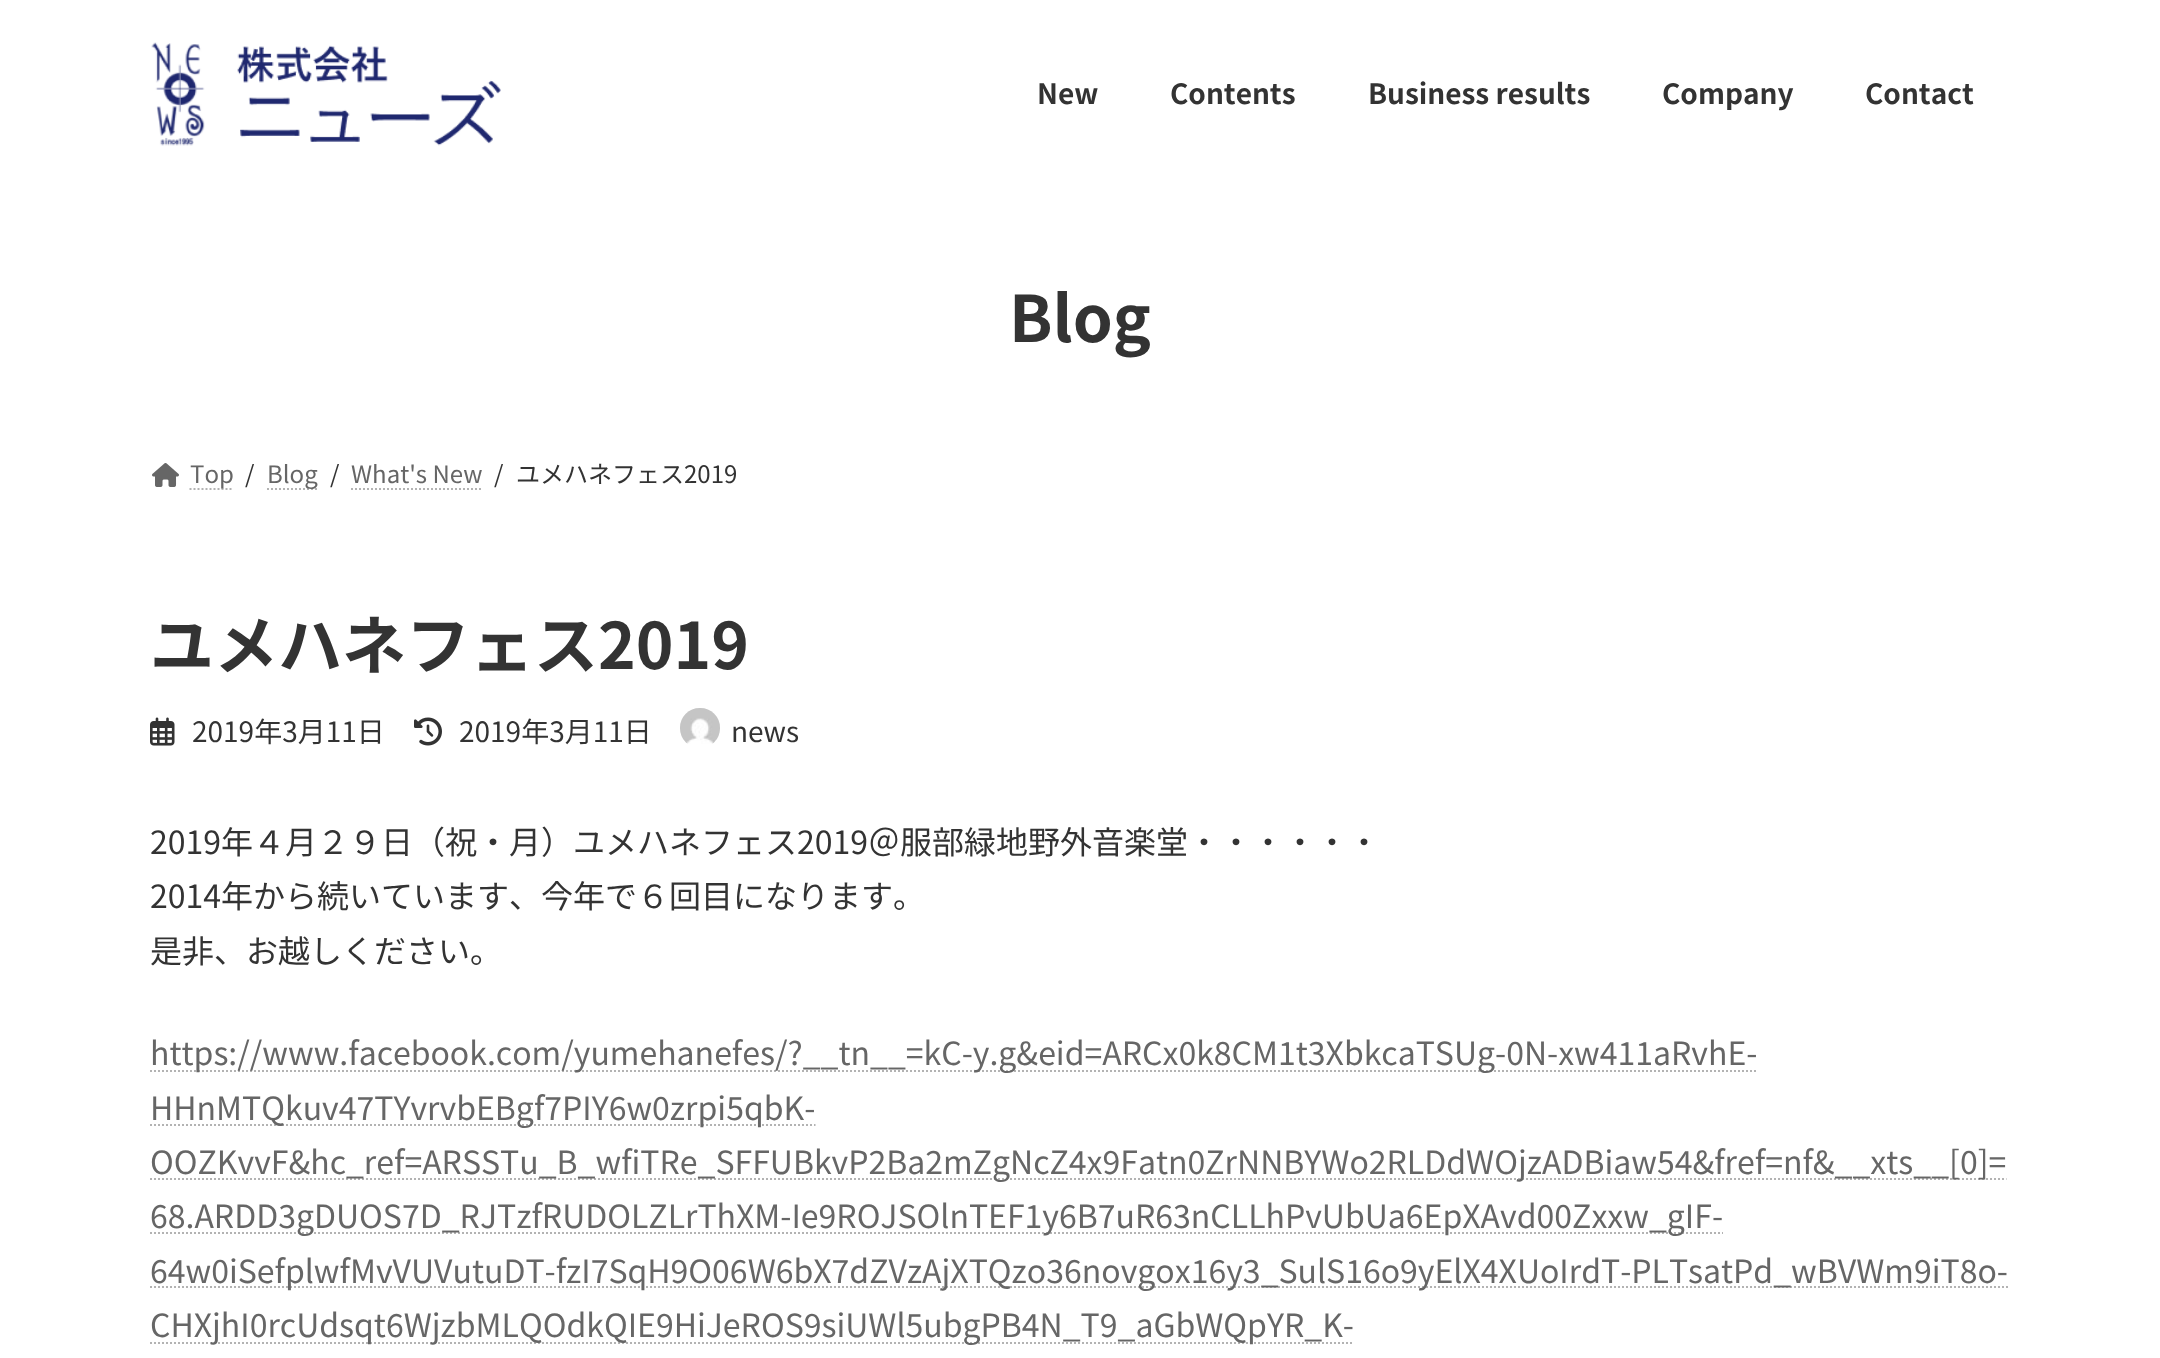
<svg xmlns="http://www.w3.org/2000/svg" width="2160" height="1358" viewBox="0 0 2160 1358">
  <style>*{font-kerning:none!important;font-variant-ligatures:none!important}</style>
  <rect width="100%" height="100%" fill="#ffffff"/>
  <image x="151" y="42" width="350" height="104" href="img1.png"/>
  <text x="1037" y="104" font-family="Noto Sans JP" font-size="28" font-weight="bold" fill="#333333">New</text>
  <text x="1170" y="104" font-family="Noto Sans JP" font-size="28" font-weight="bold" fill="#333333">Contents</text>
  <text x="1368" y="104" font-family="Noto Sans JP" font-size="28" font-weight="bold" fill="#333333">Business results</text>
  <text x="1662" y="104" font-family="Noto Sans JP" font-size="28" font-weight="bold" fill="#333333">Company</text>
  <text x="1865" y="104" font-family="Noto Sans JP" font-size="28" font-weight="bold" fill="#333333">Contact</text>
  <text x="1009" y="342" font-family="Noto Sans JP" font-size="64" font-weight="bold" fill="#333333">Blog</text>
  <image x="152" y="463" width="27" height="24" href="img2.png"/>
  <path d="M189.5 489H233.5" fill="none" stroke="#b3b3b3" stroke-width="2" stroke-dasharray="2 2"/>
  <text x="190" y="483" font-family="Noto Sans JP" font-size="24" fill="#666666">Top</text>
  <text x="245" y="483" font-family="Noto Sans JP" font-size="24" fill="#333333">/</text>
  <path d="M267 489H317.5" fill="none" stroke="#b3b3b3" stroke-width="2" stroke-dasharray="2 2"/>
  <text x="267" y="483" font-family="Noto Sans JP" font-size="24" fill="#666666">Blog</text>
  <text x="330" y="483" font-family="Noto Sans JP" font-size="24" fill="#333333">/</text>
  <text x="351" y="483" font-family="Noto Sans JP" font-size="24" fill="#666666">What's New</text>
  <path d="M351 489H482.5" fill="none" stroke="#b3b3b3" stroke-width="2" stroke-dasharray="2 2"/>
  <text x="494" y="483" font-family="Noto Sans JP" font-size="24" fill="#333333">/</text>
  <text x="516" y="483" font-family="Noto Sans JP" font-size="24" fill="#333333">ユメハネフェス2019</text>
  <text x="150" y="669" font-family="Noto Sans JP" font-size="64" font-weight="bold" fill="#333333">ユメハネフェス2019</text>
  <image x="150" y="717" width="25" height="29" href="img3.png"/>
  <text x="192" y="742" font-family="Noto Sans JP" font-size="28" fill="#333333">2019年3月11日</text>
  <image x="414" y="717" width="28" height="29" href="img4.png"/>
  <text x="459" y="742" font-family="Noto Sans JP" font-size="28" fill="#333333">2019年3月11日</text>
  <image x="680" y="708" width="40" height="36" href="img5.png"/>
  <text x="731" y="742" font-family="Noto Sans JP" font-size="28" fill="#333333">news</text>
  <text x="150" y="854" font-family="Noto Sans JP" font-size="32" fill="#333333">2019年４月２９日（祝・月）ユメハネフェス2019＠服部緑地野外音楽堂・・・・・・</text>
  <text x="150" y="908" font-family="Noto Sans JP" font-size="32" fill="#333333">2014年から続いています、今年で６回目になります</text>
  <text x="893" y="908" font-family="Noto Sans JP" font-size="32" fill="#333333">。</text>
  <text x="150" y="963" font-family="Noto Sans JP" font-size="32" fill="#333333">是非、お越しください。</text>
  <path d="M150 1071H1757.5" fill="none" stroke="#b3b3b3" stroke-width="2" stroke-dasharray="2 2"/>
  <text x="150" y="1065" font-family="Noto Sans JP" font-size="32" fill="#666666">https://www.facebook.com/yumehanefes/?__tn__=kC-y.g&amp;eid=ARCx0k8CM1t3XbkcaTSUg-0N-xw411aRvhE-</text>
  <path d="M150 1125H815.5" fill="none" stroke="#b3b3b3" stroke-width="2" stroke-dasharray="2 2"/>
  <text x="150" y="1120" font-family="Noto Sans JP" font-size="32" fill="#666666">HHnMTQkuv47TYvrvbEBgf7PIY6w0zrpi5qbK-</text>
  <path d="M150 1179H2006.5" fill="none" stroke="#b3b3b3" stroke-width="2" stroke-dasharray="2 2"/>
  <text x="150" y="1174" font-family="Noto Sans JP" font-size="32" fill="#666666">OOZKvvF&amp;hc_ref=ARSSTu_B_wfiTRe_SFFUBkvP2Ba2mZgNcZ4x9Fatn0ZrNNBYWo2RLDdWOjzADBiaw54&amp;fref=nf&amp;__xts__[0]=</text>
  <path d="M150 1233H1723" fill="none" stroke="#b3b3b3" stroke-width="2" stroke-dasharray="2 2"/>
  <text x="150" y="1228" font-family="Noto Sans JP" font-size="32" fill="#666666">68.ARDD3gDUOS7D_RJTzfRUDOLZLrThXM-Ie9ROJSOlnTEF1y6B7uR63nCLLhPvUbUa6EpXAvd00Zxxw_gIF-</text>
  <path d="M150 1287H2008" fill="none" stroke="#b3b3b3" stroke-width="2" stroke-dasharray="2 2"/>
  <text x="150" y="1283" font-family="Noto Sans JP" font-size="32" fill="#666666">64w0iSefplwfMvVUVutuDT-fzI7SqH9O06W6bX7dZVzAjXTQzo36novgox16y3_SulS16o9yElX4XUoIrdT-PLTsatPd_wBVWm9iT8o-</text>
  <path d="M150 1343H1354" fill="none" stroke="#b3b3b3" stroke-width="2" stroke-dasharray="2 2"/>
  <text x="150" y="1337" font-family="Noto Sans JP" font-size="32" fill="#666666">CHXjhI0rcUdsqt6WjzbMLQOdkQIE9HiJeROS9siUWl5ubgPB4N_T9_aGbWQpYR_K-</text>
</svg>
